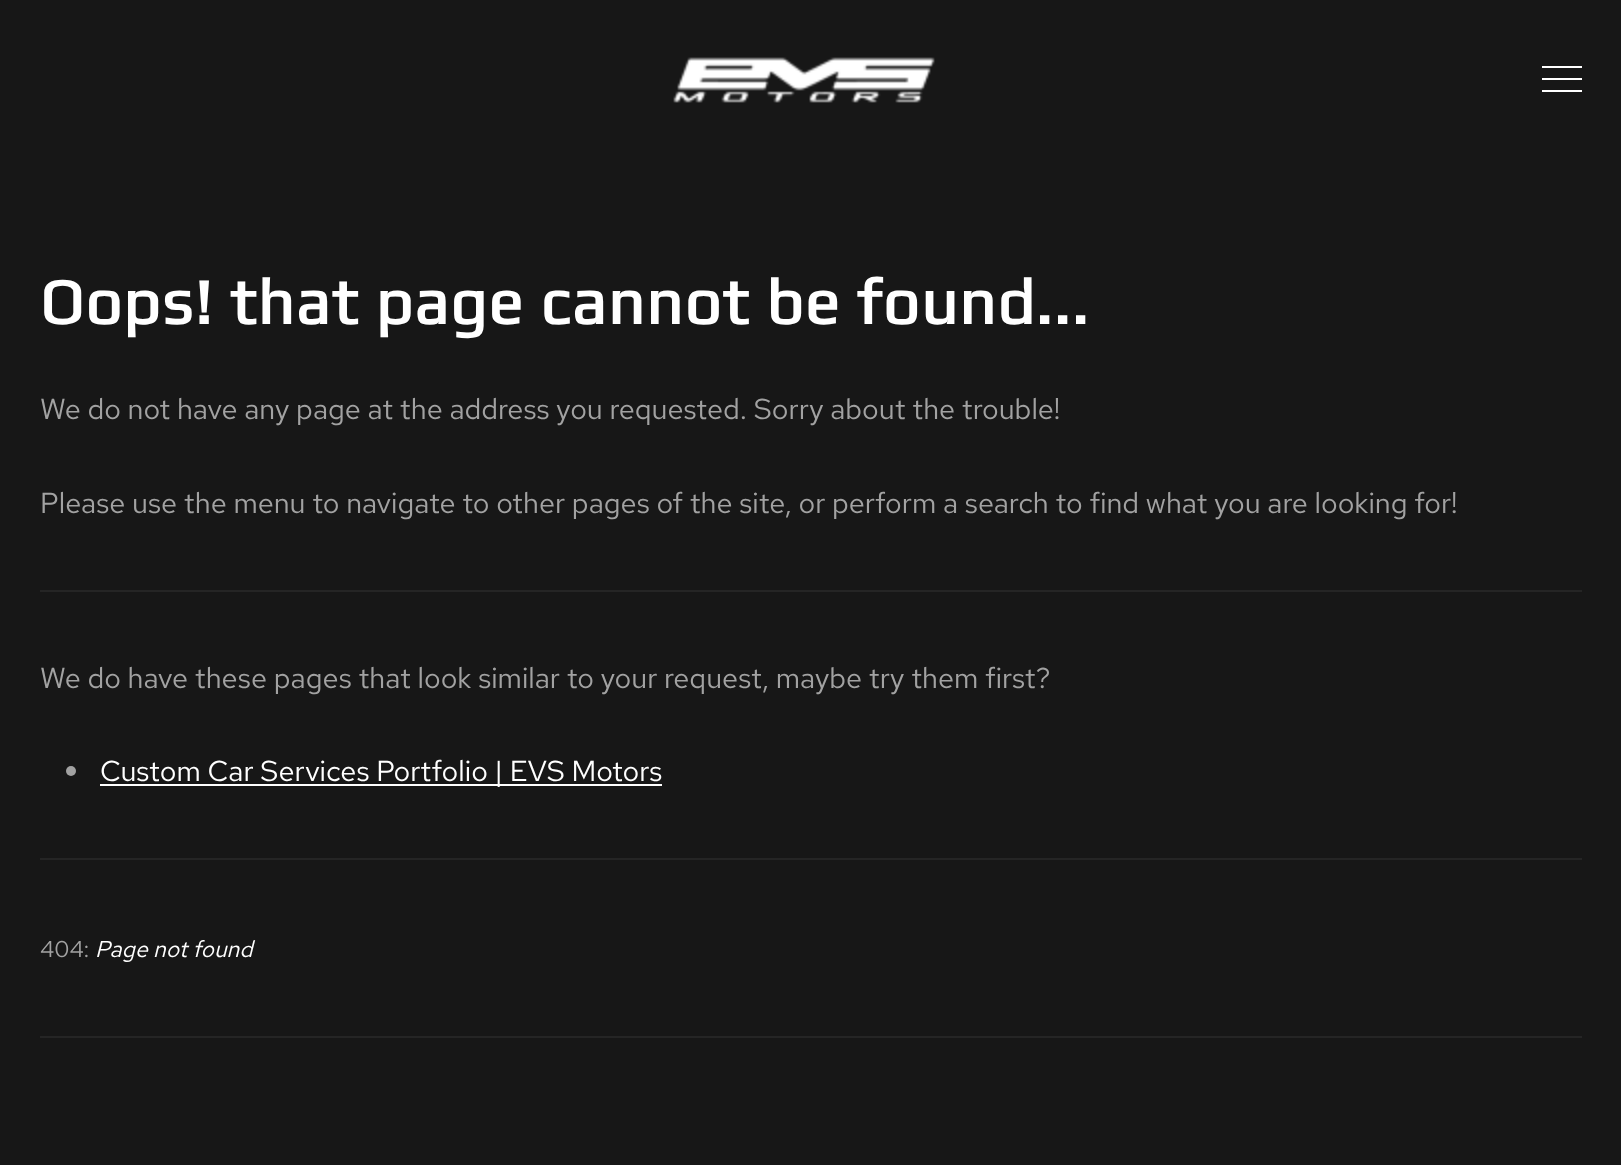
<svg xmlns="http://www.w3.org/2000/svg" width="1621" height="1165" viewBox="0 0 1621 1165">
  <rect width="100%" height="100%" fill="#171717"/>
  <image x="673" y="57" width="262" height="46" href="img1.png"/>
  <rect x="1542" y="66" width="40" height="2" fill="#ffffff"/>
  <rect x="1542" y="78" width="40" height="2" fill="#ffffff"/>
  <rect x="1542" y="90" width="40" height="2" fill="#ffffff"/>
  <text x="40" y="324" font-family="Play" font-size="64.25" font-weight="bold" letter-spacing="1.5" fill="#ffffff">Oops! that page cannot be found...</text>
  <text x="40" y="419" font-family="Red Hat Text" font-size="28.8" fill="#a2a2a2">We do not have any page at the address you requested. Sorry about the trouble!</text>
  <text x="40" y="513" font-family="Red Hat Text" font-size="28.8" fill="#a2a2a2">Please use the menu to navigate to other pages of the site, or perform a search to find what you are looking for!</text>
  <rect x="40" y="590" width="1542" height="2" fill="#252525"/>
  <text x="40" y="688" font-family="Red Hat Text" font-size="28.8" fill="#a2a2a2">We do have these pages that look similar to your request, maybe try them first?</text>
  <circle cx="71" cy="771" r="5" fill="#a2a2a2"/>
  <rect x="100" y="784" width="562" height="2" fill="#ffffff"/>
  <text x="100" y="781" font-family="Red Hat Text" font-size="28.8" fill="#ffffff">Custom Car Services Portfolio | EVS Motors</text>
  <rect x="40" y="858" width="1542" height="2" fill="#252525"/>
  <text x="40" y="957" font-family="Red Hat Text" font-size="23" fill="#a2a2a2">404:</text>
  <text x="95" y="957" font-family="Red Hat Text" font-size="23" font-style="italic" fill="#ffffff">Page not found</text>
  <rect x="40" y="1036" width="1542" height="2" fill="#252525"/>
</svg>
